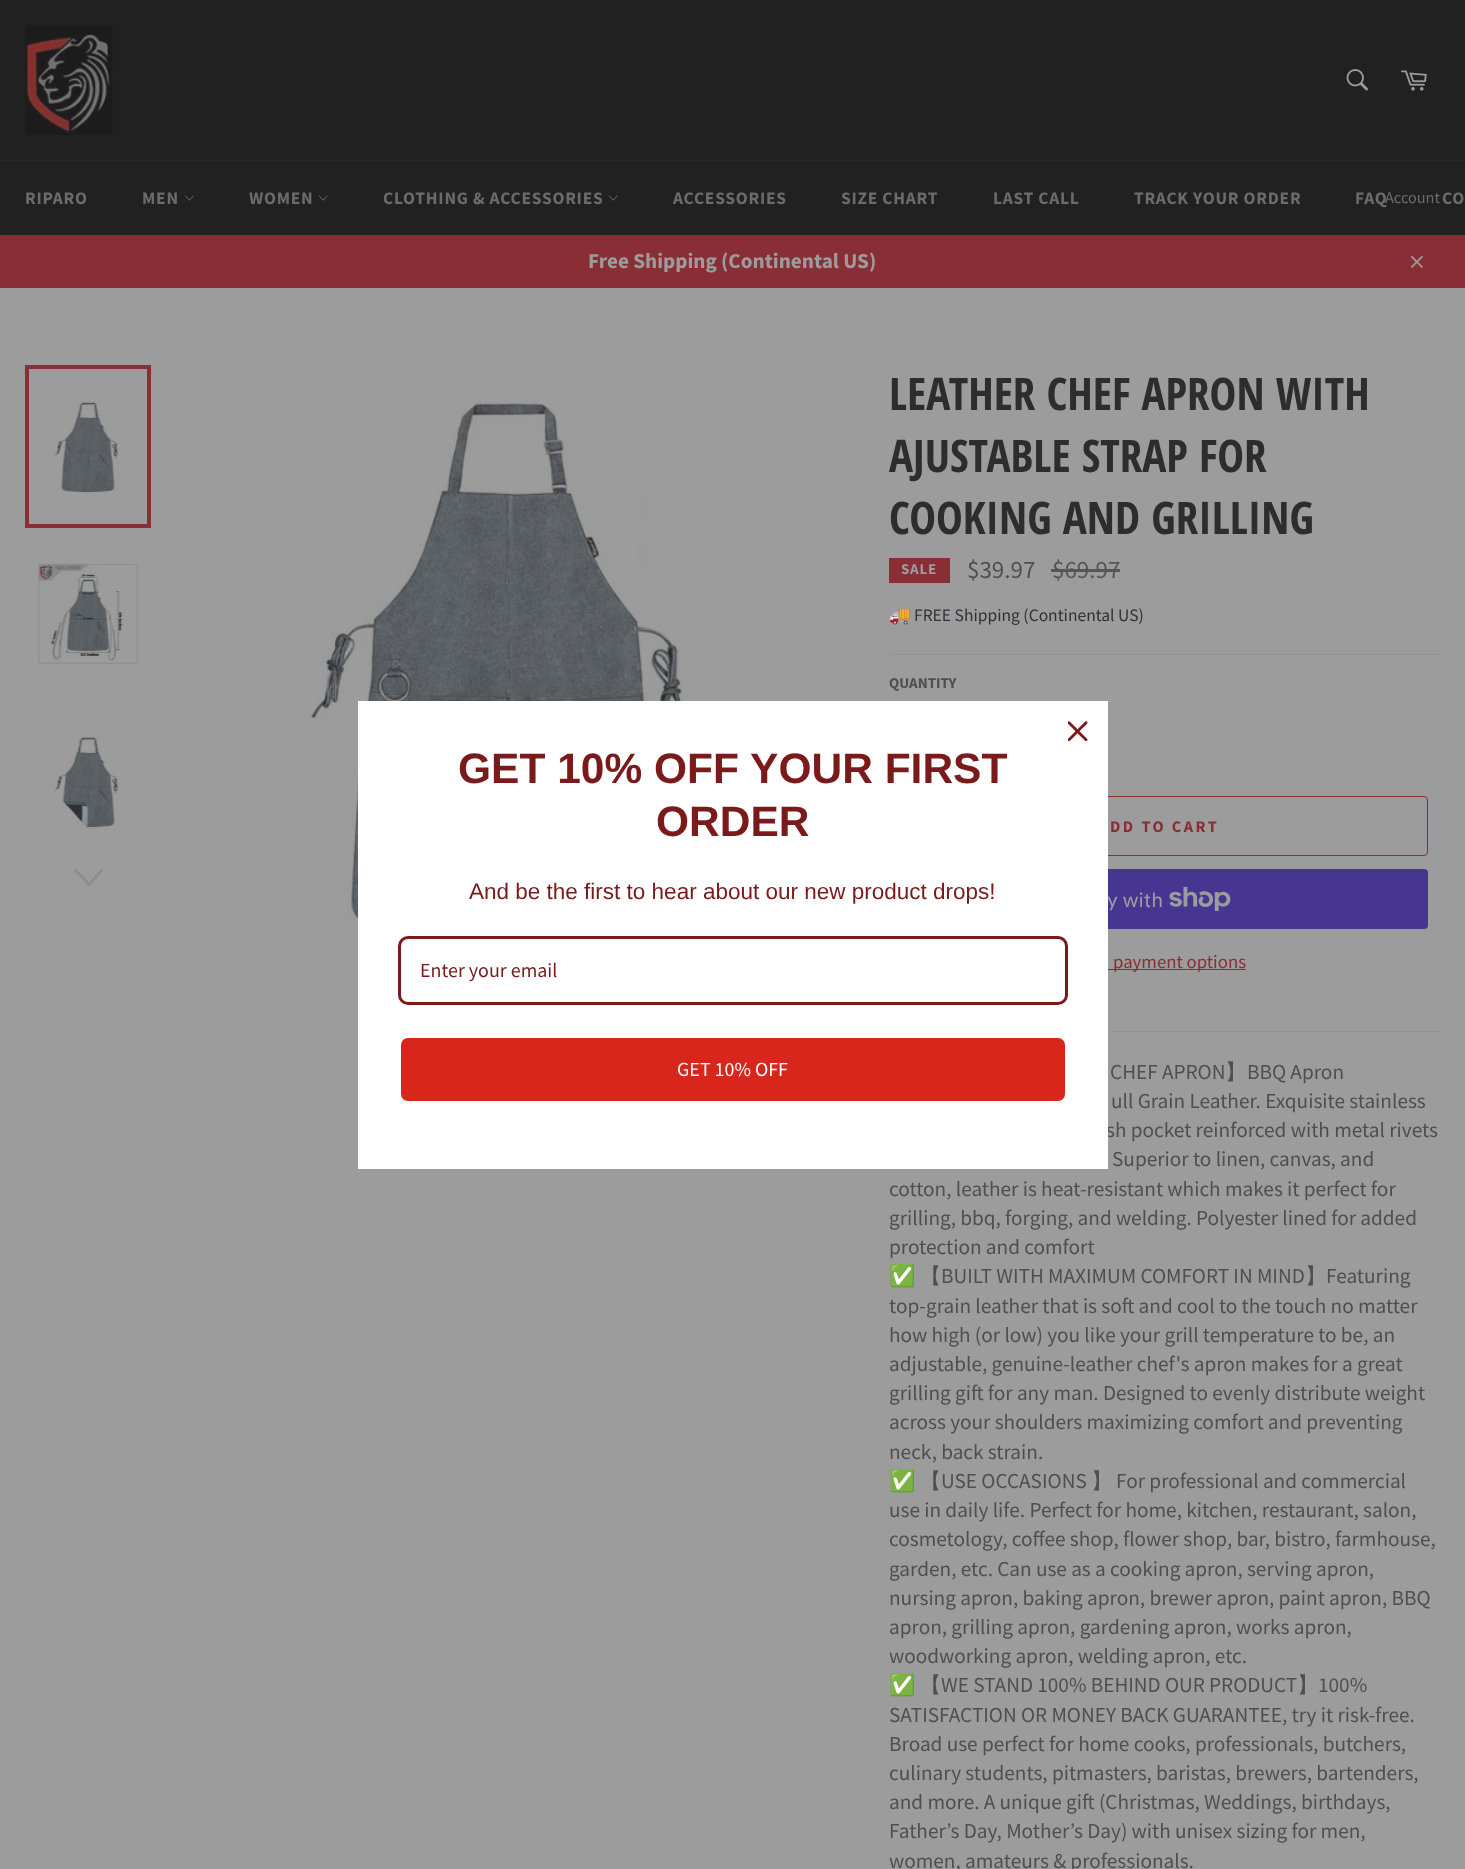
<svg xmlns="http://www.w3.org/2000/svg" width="1465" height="1869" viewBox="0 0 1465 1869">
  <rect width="100%" height="100%" fill="#212121"/>
  <image x="25" y="25" width="88" height="110" href="img1.png"/>
  <image x="1346" y="69" width="23" height="22" href="img2.png"/>
  <image x="1401" y="70" width="26" height="21" href="img3.png"/>
  <rect x="0" y="160" width="1465" height="1" fill="#282828"/>
  <text x="25" y="204" font-family="Source Sans Pro" font-size="17.5" font-weight="bold" letter-spacing="0.75" fill="#6b6b6b">RIPARO</text>
  <text x="142" y="204" font-family="Source Sans Pro" font-size="17.5" font-weight="bold" letter-spacing="0.75" fill="#6b6b6b">MEN</text>
  <image x="185" y="195" width="9" height="6" href="img4.png"/>
  <text x="249" y="204" font-family="Source Sans Pro" font-size="17.5" font-weight="bold" letter-spacing="0.75" fill="#6b6b6b">WOMEN</text>
  <image x="318" y="195" width="10" height="6" href="img5.png"/>
  <text x="383" y="204" font-family="Source Sans Pro" font-size="17.5" font-weight="bold" letter-spacing="0.75" fill="#6b6b6b">CLOTHING &amp; ACCESSORIES</text>
  <image x="608" y="195" width="10" height="6" href="img5.png"/>
  <text x="673" y="204" font-family="Source Sans Pro" font-size="17.5" font-weight="bold" letter-spacing="0.75" fill="#6b6b6b">ACCESSORIES</text>
  <text x="841" y="204" font-family="Source Sans Pro" font-size="17.5" font-weight="bold" letter-spacing="0.75" fill="#6b6b6b">SIZE CHART</text>
  <text x="993" y="204" font-family="Source Sans Pro" font-size="17.5" font-weight="bold" letter-spacing="0.75" fill="#6b6b6b">LAST CALL</text>
  <text x="1134" y="204" font-family="Source Sans Pro" font-size="17.5" font-weight="bold" letter-spacing="0.75" fill="#6b6b6b">TRACK YOUR ORDER</text>
  <text x="1355" y="204" font-family="Source Sans Pro" font-size="17.5" font-weight="bold" letter-spacing="0.75" fill="#6b6b6b">FAQ</text>
  <text x="1442" y="204" font-family="Source Sans Pro" font-size="17.5" font-weight="bold" letter-spacing="0.75" fill="#6b6b6b">CO</text>
  <text x="1385" y="203" font-family="Source Sans Pro" font-size="16.25" fill="#6b6b6b">Account</text>
  <rect x="0" y="235" width="1465" height="53" fill="#882e34"/>
  <text x="588" y="268" font-family="Source Sans Pro" font-size="21.25" font-weight="bold" fill="#9c9c9c">Free Shipping (Continental US)</text>
  <image x="1410" y="255" width="13" height="13" href="img6.png"/>
  <rect x="0" y="288" width="1465" height="1581" fill="#9c9c9c"/>
  <image x="309" y="402" width="374" height="536" href="img11.png"/>
  <rect x="889.5" y="796.5" width="538" height="59" rx="3.5" fill="none" stroke="#882e34"/>
  <rect x="889" y="869" width="539" height="60" rx="4" fill="#463692"/>
  <text x="1107" y="907" font-family="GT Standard" font-size="20" fill="#9c9c9c">y with</text>
  <text x="1106" y="1137" font-family="Source Sans Pro" font-size="21.25" fill="#4f4f4f">sh pocket reinforced with metal rivets</text>
  <rect x="358" y="701" width="750" height="468" fill="#ffffff"/>
  <image x="1068" y="721" width="20" height="20" href="img7.png"/>
  <text x="458" y="783" font-family="Liberation Sans" font-size="42.5" font-weight="bold" fill="#7a1a1b">GET 10% OFF YOUR FIRST</text>
  <text x="656" y="836" font-family="Liberation Sans" font-size="42.5" font-weight="bold" fill="#7a1a1b">ORDER</text>
  <text x="469" y="899" font-family="Liberation Sans" font-size="22.5" fill="#7a1a1b">And be the first to hear about our new product drops!</text>
  <rect x="399.5" y="937.5" width="667" height="66" rx="8.5" fill="none" stroke="#7a1a1b" stroke-width="3"/>
  <text x="420" y="977" font-family="'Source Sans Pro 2'" font-size="20" fill="#7a1a1b">Enter your email</text>
  <rect x="399.5" y="1036.5" width="667" height="66" rx="8.5" fill="#d8261c" stroke="#ffffff" stroke-width="3"/>
  <text x="677" y="1076" font-family="'Source Sans Pro 2'" font-size="20" fill="#ffffff">GET 10% OFF</text>
  <image x="54" y="401" width="65" height="92" href="img8.png"/>
  <rect x="27" y="367" width="122" height="159" fill="none" stroke="#882e34" stroke-width="4"/>
  <image x="38" y="563" width="101" height="101" href="img9.png"/>
  <image x="54" y="736" width="65" height="93" href="img10.png"/>
  <path d="M101.5 868.5L103.5 870.5L89 886.5L74 870.5L76 868.5L89 882.5Z" fill="#8c8c8c"/>
  <text x="889" y="410" font-family="Open Sans Condensed" font-size="45" font-weight="bold" fill="#2d2d2d">LEATHER CHEF APRON WITH</text>
  <text x="889" y="472" font-family="Open Sans Condensed" font-size="45" font-weight="bold" fill="#2d2d2d">AJUSTABLE STRAP FOR</text>
  <text x="889" y="534" font-family="Open Sans Condensed" font-size="45" font-weight="bold" fill="#2d2d2d">COOKING AND GRILLING</text>
  <rect x="889" y="558" width="61" height="25" fill="#882e34"/>
  <text x="901" y="574" font-family="Source Sans Pro" font-size="15" font-weight="bold" letter-spacing="0.75" fill="#9c9c9c">SALE</text>
  <text x="967" y="578" font-family="Source Sans Pro" font-size="25" fill="#4f4f4f">$39.97</text>
  <text x="1052" y="578" font-family="Source Sans Pro" font-size="25" fill="#565656">$69.97</text>
  <rect x="1051" y="569" width="69" height="3" fill="#565656"/>
  <text x="889" y="621" font-family="Noto Color Emoji" font-size="17.5" fill="#2d3237">🚚</text>
  <text x="914" y="621" font-family="Source Sans Pro" font-size="17.5" fill="#2d3237">FREE Shipping (Continental US)</text>
  <rect x="889" y="654" width="551" height="1" fill="#949494"/>
  <text x="889" y="688" font-family="Source Sans Pro" font-size="15" font-weight="bold" fill="#4f4f4f">QUANTITY</text>
  <text x="1110" y="832" font-family="Source Sans Pro" font-size="16.25" font-weight="bold" letter-spacing="2.5" fill="#882e34">DD TO CART</text>
  <image x="1169" y="886" width="62" height="25" href="img12.png"/>
  <rect x="1108" y="969" width="138" height="1" fill="#882e34"/>
  <text x="1113" y="968" font-family="Source Sans Pro" font-size="18.75" fill="#882e34">payment options</text>
  <rect x="1108" y="1031" width="332" height="1" fill="#949494"/>
  <text x="1110" y="1079" font-family="Source Sans Pro" font-size="21.25" fill="#4f4f4f">CHEF APRON</text>
  <text x="1225" y="1079" font-family="WenQuanYi Zen Hei" font-size="21.25" font-weight="500" fill="#4f4f4f">】</text>
  <text x="1247" y="1079" font-family="Source Sans Pro" font-size="21.25" fill="#4f4f4f">BBQ Apron</text>
  <text x="1111" y="1108" font-family="Source Sans Pro" font-size="21.25" fill="#4f4f4f">ull Grain Leather. Exquisite stainless</text>
  <text x="1112" y="1166" font-family="Source Sans Pro" font-size="21.25" fill="#4f4f4f">Superior to linen, canvas, and</text>
  <text x="889" y="1196" font-family="Source Sans Pro" font-size="21.25" fill="#4f4f4f">cotton, leather is heat-resistant which makes it perfect for</text>
  <text x="889" y="1225" font-family="Source Sans Pro" font-size="21.25" fill="#4f4f4f">grilling, bbq, forging, and welding. Polyester lined for added</text>
  <text x="889" y="1254" font-family="Source Sans Pro" font-size="21.25" fill="#4f4f4f">protection and comfort</text>
  <text x="889" y="1283" font-family="Noto Color Emoji" font-size="21.25" fill="#4f4f4f">✅</text>
  <text x="920" y="1283" font-family="WenQuanYi Zen Hei" font-size="21.25" font-weight="500" fill="#4f4f4f">【</text>
  <text x="941" y="1283" font-family="Source Sans Pro" font-size="21.25" fill="#4f4f4f">BUILT WITH MAXIMUM COMFORT IN MIND</text>
  <text x="1305" y="1283" font-family="WenQuanYi Zen Hei" font-size="21.25" font-weight="500" fill="#4f4f4f">】</text>
  <text x="1326" y="1283" font-family="Source Sans Pro" font-size="21.25" fill="#4f4f4f">Featuring</text>
  <text x="889" y="1313" font-family="Source Sans Pro" font-size="21.25" fill="#4f4f4f">top-grain leather that is soft and cool to the touch no matter</text>
  <text x="889" y="1342" font-family="Source Sans Pro" font-size="21.25" fill="#4f4f4f">how high (or low) you like your grill temperature to be, an</text>
  <text x="889" y="1371" font-family="Source Sans Pro" font-size="21.25" fill="#4f4f4f">adjustable, genuine-leather chef's apron makes for a great</text>
  <text x="889" y="1400" font-family="Source Sans Pro" font-size="21.25" fill="#4f4f4f">grilling gift for any man. Designed to evenly distribute weight</text>
  <text x="889" y="1429" font-family="Source Sans Pro" font-size="21.25" fill="#4f4f4f">across your shoulders maximizing comfort and preventing</text>
  <text x="889" y="1459" font-family="Source Sans Pro" font-size="21.25" fill="#4f4f4f">neck, back strain.</text>
  <text x="889" y="1488" font-family="Noto Color Emoji" font-size="21.25" fill="#4f4f4f">✅</text>
  <text x="920" y="1488" font-family="WenQuanYi Zen Hei" font-size="21.25" font-weight="500" fill="#4f4f4f">【</text>
  <text x="941" y="1488" font-family="Source Sans Pro" font-size="21.25" fill="#4f4f4f">USE OCCASIONS</text>
  <text x="1091" y="1488" font-family="WenQuanYi Zen Hei" font-size="21.25" font-weight="500" fill="#4f4f4f">】</text>
  <text x="1116" y="1488" font-family="Source Sans Pro" font-size="21.25" fill="#4f4f4f">For professional and commercial</text>
  <text x="889" y="1517" font-family="Source Sans Pro" font-size="21.25" fill="#4f4f4f">use in daily life. Perfect for home, kitchen, restaurant, salon,</text>
  <text x="889" y="1546" font-family="Source Sans Pro" font-size="21.25" fill="#4f4f4f">cosmetology, coffee shop, flower shop, bar, bistro, farmhouse,</text>
  <text x="889" y="1576" font-family="Source Sans Pro" font-size="21.25" fill="#4f4f4f">garden, etc. Can use as a cooking apron, serving apron,</text>
  <text x="889" y="1605" font-family="Source Sans Pro" font-size="21.25" fill="#4f4f4f">nursing apron, baking apron, brewer apron, paint apron, BBQ</text>
  <text x="889" y="1634" font-family="Source Sans Pro" font-size="21.25" fill="#4f4f4f">apron, grilling apron, gardening apron, works apron,</text>
  <text x="889" y="1663" font-family="Source Sans Pro" font-size="21.25" fill="#4f4f4f">woodworking apron, welding apron, etc.</text>
  <text x="889" y="1692" font-family="Noto Color Emoji" font-size="21.25" fill="#4f4f4f">✅</text>
  <text x="920" y="1692" font-family="WenQuanYi Zen Hei" font-size="21.25" font-weight="500" fill="#4f4f4f">【</text>
  <text x="941" y="1692" font-family="Source Sans Pro" font-size="21.25" fill="#4f4f4f">WE STAND 100% BEHIND OUR PRODUCT</text>
  <text x="1297" y="1692" font-family="WenQuanYi Zen Hei" font-size="21.25" font-weight="500" fill="#4f4f4f">】</text>
  <text x="1318" y="1692" font-family="Source Sans Pro" font-size="21.25" fill="#4f4f4f">100%</text>
  <text x="889" y="1722" font-family="Source Sans Pro" font-size="21.25" fill="#4f4f4f">SATISFACTION OR MONEY BACK GUARANTEE, try it risk-free.</text>
  <text x="889" y="1751" font-family="Source Sans Pro" font-size="21.25" fill="#4f4f4f">Broad use perfect for home cooks, professionals, butchers,</text>
  <text x="889" y="1780" font-family="Source Sans Pro" font-size="21.25" fill="#4f4f4f">culinary students, pitmasters, baristas, brewers, bartenders,</text>
  <text x="889" y="1809" font-family="Source Sans Pro" font-size="21.25" fill="#4f4f4f">and more. A unique gift (Christmas, Weddings, birthdays,</text>
  <text x="889" y="1838" font-family="Source Sans Pro" font-size="21.25" fill="#4f4f4f">Father’s Day, Mother’s Day) with unisex sizing for men,</text>
  <text x="889" y="1868" font-family="Source Sans Pro" font-size="21.25" fill="#4f4f4f">women, amateurs &amp; professionals.</text>
</svg>
